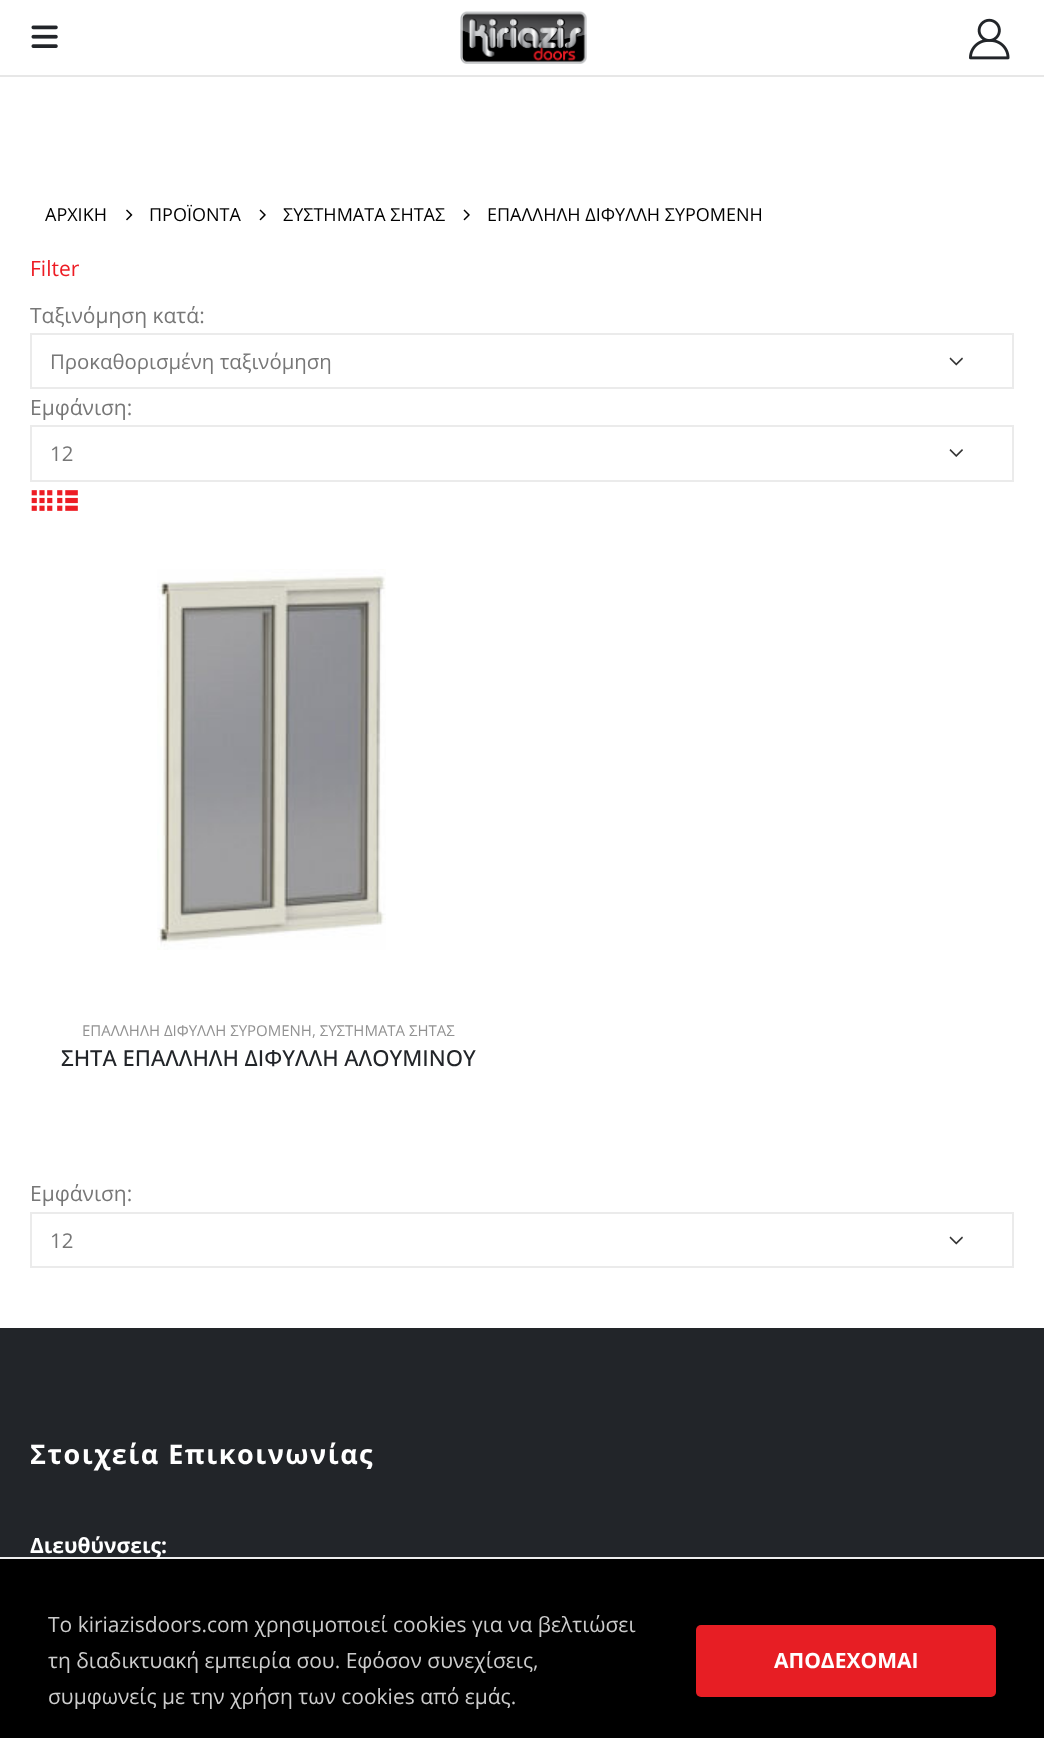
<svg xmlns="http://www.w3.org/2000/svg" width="1044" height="1738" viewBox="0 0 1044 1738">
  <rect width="100%" height="100%" fill="#ffffff"/>
  <rect x="0" y="75" width="1044" height="2" fill="#e7e7e7"/>
  <image x="31" y="25" width="27" height="23" href="img1.png"/>
  <image x="460" y="11" width="127" height="53" href="img2.png"/>
  <image x="969" y="18" width="41" height="42" href="img3.png"/>
  <text x="45" y="221" font-family="Open Sans" font-size="18" fill="#000000">ΑΡΧΙΚΗ</text>
  <image x="126" y="209" width="7" height="12" href="img4.png"/>
  <text x="149" y="221" font-family="Open Sans" font-size="18" fill="#000000">ΠΡΟΪΟΝΤΑ</text>
  <image x="259" y="209" width="7" height="12" href="img5.png"/>
  <text x="283" y="221" font-family="Open Sans" font-size="18" fill="#000000">ΣΥΣΤΗΜΑΤΑ ΣΗΤΑΣ</text>
  <image x="463" y="209" width="7" height="12" href="img5.png"/>
  <text x="487" y="221" font-family="Open Sans" font-size="18" fill="#000000">ΕΠΑΛΛΗΛΗ ΔΙΦΥΛΛΗ ΣΥΡΟΜΕΝΗ</text>
  <text x="30" y="276" font-family="Open Sans" font-size="21" fill="#ed1c24">Filter</text>
  <text x="30" y="323" font-family="Open Sans" font-size="21" fill="#777777">Ταξινόμηση κατά:</text>
  <image x="949" y="357" width="14" height="9" href="img6.png"/>
  <rect x="31" y="334" width="982" height="54" fill="none" stroke="#ebebeb" stroke-width="2"/>
  <text x="50" y="369" font-family="Open Sans" font-size="20.4" fill="#777777">Προκαθορισμένη ταξινόμηση</text>
  <text x="30" y="415" font-family="Open Sans" font-size="21" fill="#777777">Εμφάνιση:</text>
  <image x="949" y="449" width="14" height="8" href="img7.png"/>
  <rect x="31" y="426" width="982" height="55" fill="none" stroke="#ebebeb" stroke-width="2"/>
  <text x="50" y="461" font-family="Open Sans" font-size="20.4" fill="#777777">12</text>
  <image x="31" y="490" width="22" height="21" href="img8.png"/>
  <image x="57" y="490" width="21" height="21" href="img9.png"/>
  <image x="157" y="569" width="229" height="381" href="img10.png"/>
  <text x="82" y="1036" font-family="Open Sans" font-size="15" fill="#929292">ΕΠΑΛΛΗΛΗ ΔΙΦΥΛΛΗ ΣΥΡΟΜΕΝΗ, ΣΥΣΤΗΜΑΤΑ ΣΗΤΑΣ</text>
  <text x="61" y="1066" font-family="Open Sans" font-size="22.1" font-weight="500" fill="#222529">ΣΗΤΑ ΕΠΑΛΛΗΛΗ ΔΙΦΥΛΛΗ ΑΛΟΥΜΙΝΟΥ</text>
  <text x="30" y="1201" font-family="Open Sans" font-size="21" fill="#777777">Εμφάνιση:</text>
  <image x="949" y="1236" width="14" height="9" href="img6.png"/>
  <rect x="31" y="1213" width="982" height="54" fill="none" stroke="#ebebeb" stroke-width="2"/>
  <text x="50" y="1248" font-family="Open Sans" font-size="20.4" fill="#777777">12</text>
  <rect x="0" y="1328" width="1044" height="229" fill="#222529"/>
  <text x="30" y="1464" font-family="Open Sans" font-size="27" font-weight="bold" letter-spacing="1.5" fill="#ffffff">Στοιχεία Επικοινωνίας</text>
  <text x="30" y="1553" font-family="Open Sans" font-size="21" font-weight="bold" fill="#ffffff">Διευθύνσεις:</text>
  <rect x="0" y="1559" width="1044" height="179" fill="#000000"/>
  <rect x="0" y="1557" width="1044" height="2" fill="#eeeeee"/>
  <text x="48" y="1632" font-family="Open Sans" font-size="21" fill="#cccccc">To kiriazisdoors.com χρησιμοποιεί cookies για να βελτιώσει</text>
  <text x="48" y="1668" font-family="Open Sans" font-size="21" fill="#cccccc">τη διαδικτυακή εμπειρία σου. Εφόσον συνεχίσεις,</text>
  <text x="48" y="1704" font-family="Open Sans" font-size="21" fill="#cccccc">συμφωνείς με την χρήση των cookies από εμάς.</text>
  <rect x="696" y="1625" width="300" height="72" rx="5" fill="#e71e24"/>
  <text x="774" y="1668" font-family="Open Sans" font-size="21" font-weight="bold" fill="#ffffff">ΑΠΟΔΕΧΟΜΑΙ</text>
</svg>
